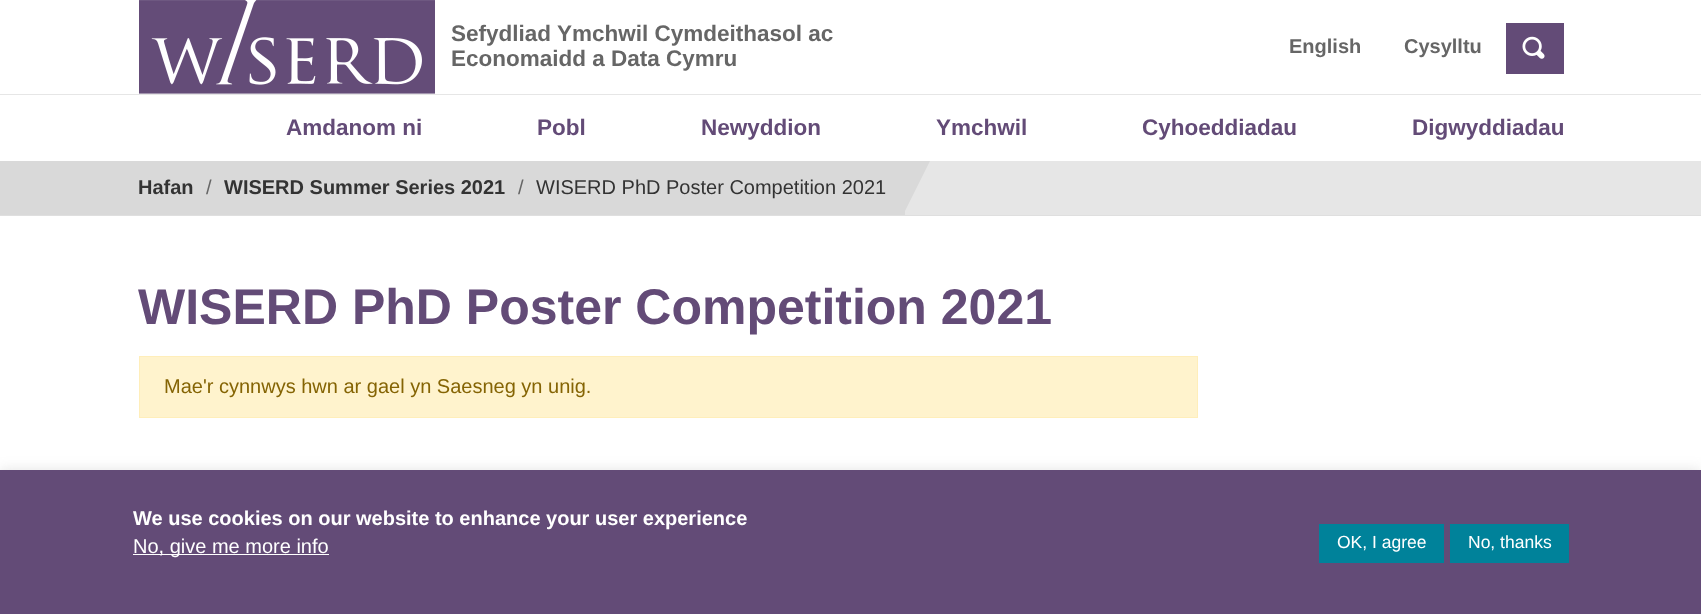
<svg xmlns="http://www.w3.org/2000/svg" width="1701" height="614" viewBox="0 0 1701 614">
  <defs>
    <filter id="blur1" x="-50%" y="-200%" width="200%" height="500%"><feGaussianBlur stdDeviation="6"/></filter>
  </defs>
  <rect width="100%" height="100%" fill="#ffffff"/>
  <rect x="0" y="215" width="1701" height="1" fill="#dfdfdf"/>
  <rect x="0" y="94" width="1701" height="1" fill="#e6e6e6"/>
  <image x="139" y="0" width="296" height="94" href="img1.png"/>
  <text x="451" y="41" font-family="Liberation Sans" font-size="22.5" font-weight="bold" fill="#666666">Sefydliad Ymchwil Cymdeithasol ac</text>
  <text x="451" y="66" font-family="Liberation Sans" font-size="22.5" font-weight="bold" fill="#666666">Economaidd a Data Cymru</text>
  <text x="1289" y="53" font-family="Liberation Sans" font-size="20" font-weight="bold" fill="#666666">English</text>
  <text x="1404" y="53" font-family="Liberation Sans" font-size="20" font-weight="bold" fill="#666666">Cysylltu</text>
  <rect x="1506" y="23" width="58" height="51" fill="#634b77"/>
  <image x="1522" y="36" width="23" height="23" href="img2.png"/>
  <text x="286" y="135" font-family="Liberation Sans" font-size="22.5" font-weight="bold" fill="#634b77">Amdanom ni</text>
  <text x="537" y="135" font-family="Liberation Sans" font-size="22.5" font-weight="bold" fill="#634b77">Pobl</text>
  <text x="701" y="135" font-family="Liberation Sans" font-size="22.5" font-weight="bold" fill="#634b77">Newyddion</text>
  <text x="936" y="135" font-family="Liberation Sans" font-size="22.5" font-weight="bold" fill="#634b77">Ymchwil</text>
  <text x="1142" y="135" font-family="Liberation Sans" font-size="22.5" font-weight="bold" fill="#634b77">Cyhoeddiadau</text>
  <text x="1412" y="135" font-family="Liberation Sans" font-size="22.5" font-weight="bold" fill="#634b77">Digwyddiadau</text>
  <rect x="905" y="161" width="796" height="54" fill="#e6e6e6"/>
  <rect x="0" y="161" width="905" height="54" fill="#d9d9d9"/>
  <path d="M905 161H930L905 211Z" fill="#d9d9d9"/>
  <text x="138" y="194" font-family="Liberation Sans" font-size="20" font-weight="bold" fill="#333333">Hafan</text>
  <text x="206" y="194" font-family="Liberation Sans" font-size="20" fill="#666666">/</text>
  <text x="224" y="194" font-family="Liberation Sans" font-size="20" font-weight="bold" fill="#333333">WISERD Summer Series 2021</text>
  <text x="518" y="194" font-family="Liberation Sans" font-size="20" fill="#666666">/</text>
  <text x="536" y="194" font-family="Liberation Sans" font-size="20" fill="#333333">WISERD PhD Poster Competition 2021</text>
  <text x="138" y="324" font-family="Liberation Sans" font-size="50" font-weight="bold" fill="#634b77">WISERD PhD Poster Competition 2021</text>
  <rect x="139.5" y="356.5" width="1058" height="61" fill="#fff3cd" stroke="#ffeeba"/>
  <text x="164" y="393" font-family="Liberation Sans" font-size="20" fill="#856404">Mae'r cynnwys hwn ar gael yn Saesneg yn unig.</text>
  <rect x="0" y="469" width="1701" height="145" fill="#acabab" fill-opacity="0.3" filter="url(#blur1)"/>
  <rect x="0" y="470" width="1701" height="144" fill="#634b77"/>
  <text x="133" y="525" font-family="Liberation Sans" font-size="20" font-weight="bold" fill="#ffffff">We use cookies on our website to enhance your user experience</text>
  <rect x="133" y="554" width="196" height="1" fill="#ffffff"/>
  <text x="133" y="553" font-family="Liberation Sans" font-size="20" fill="#ffffff">No, give me more info</text>
  <rect x="1319" y="524" width="125" height="39" fill="#00829a"/>
  <text x="1337" y="548" font-family="Liberation Sans" font-size="17.5" fill="#ffffff">OK, I agree</text>
  <rect x="1450" y="524" width="119" height="39" fill="#00829a"/>
  <text x="1468" y="548" font-family="Liberation Sans" font-size="17.5" fill="#ffffff">No, thanks</text>
</svg>
